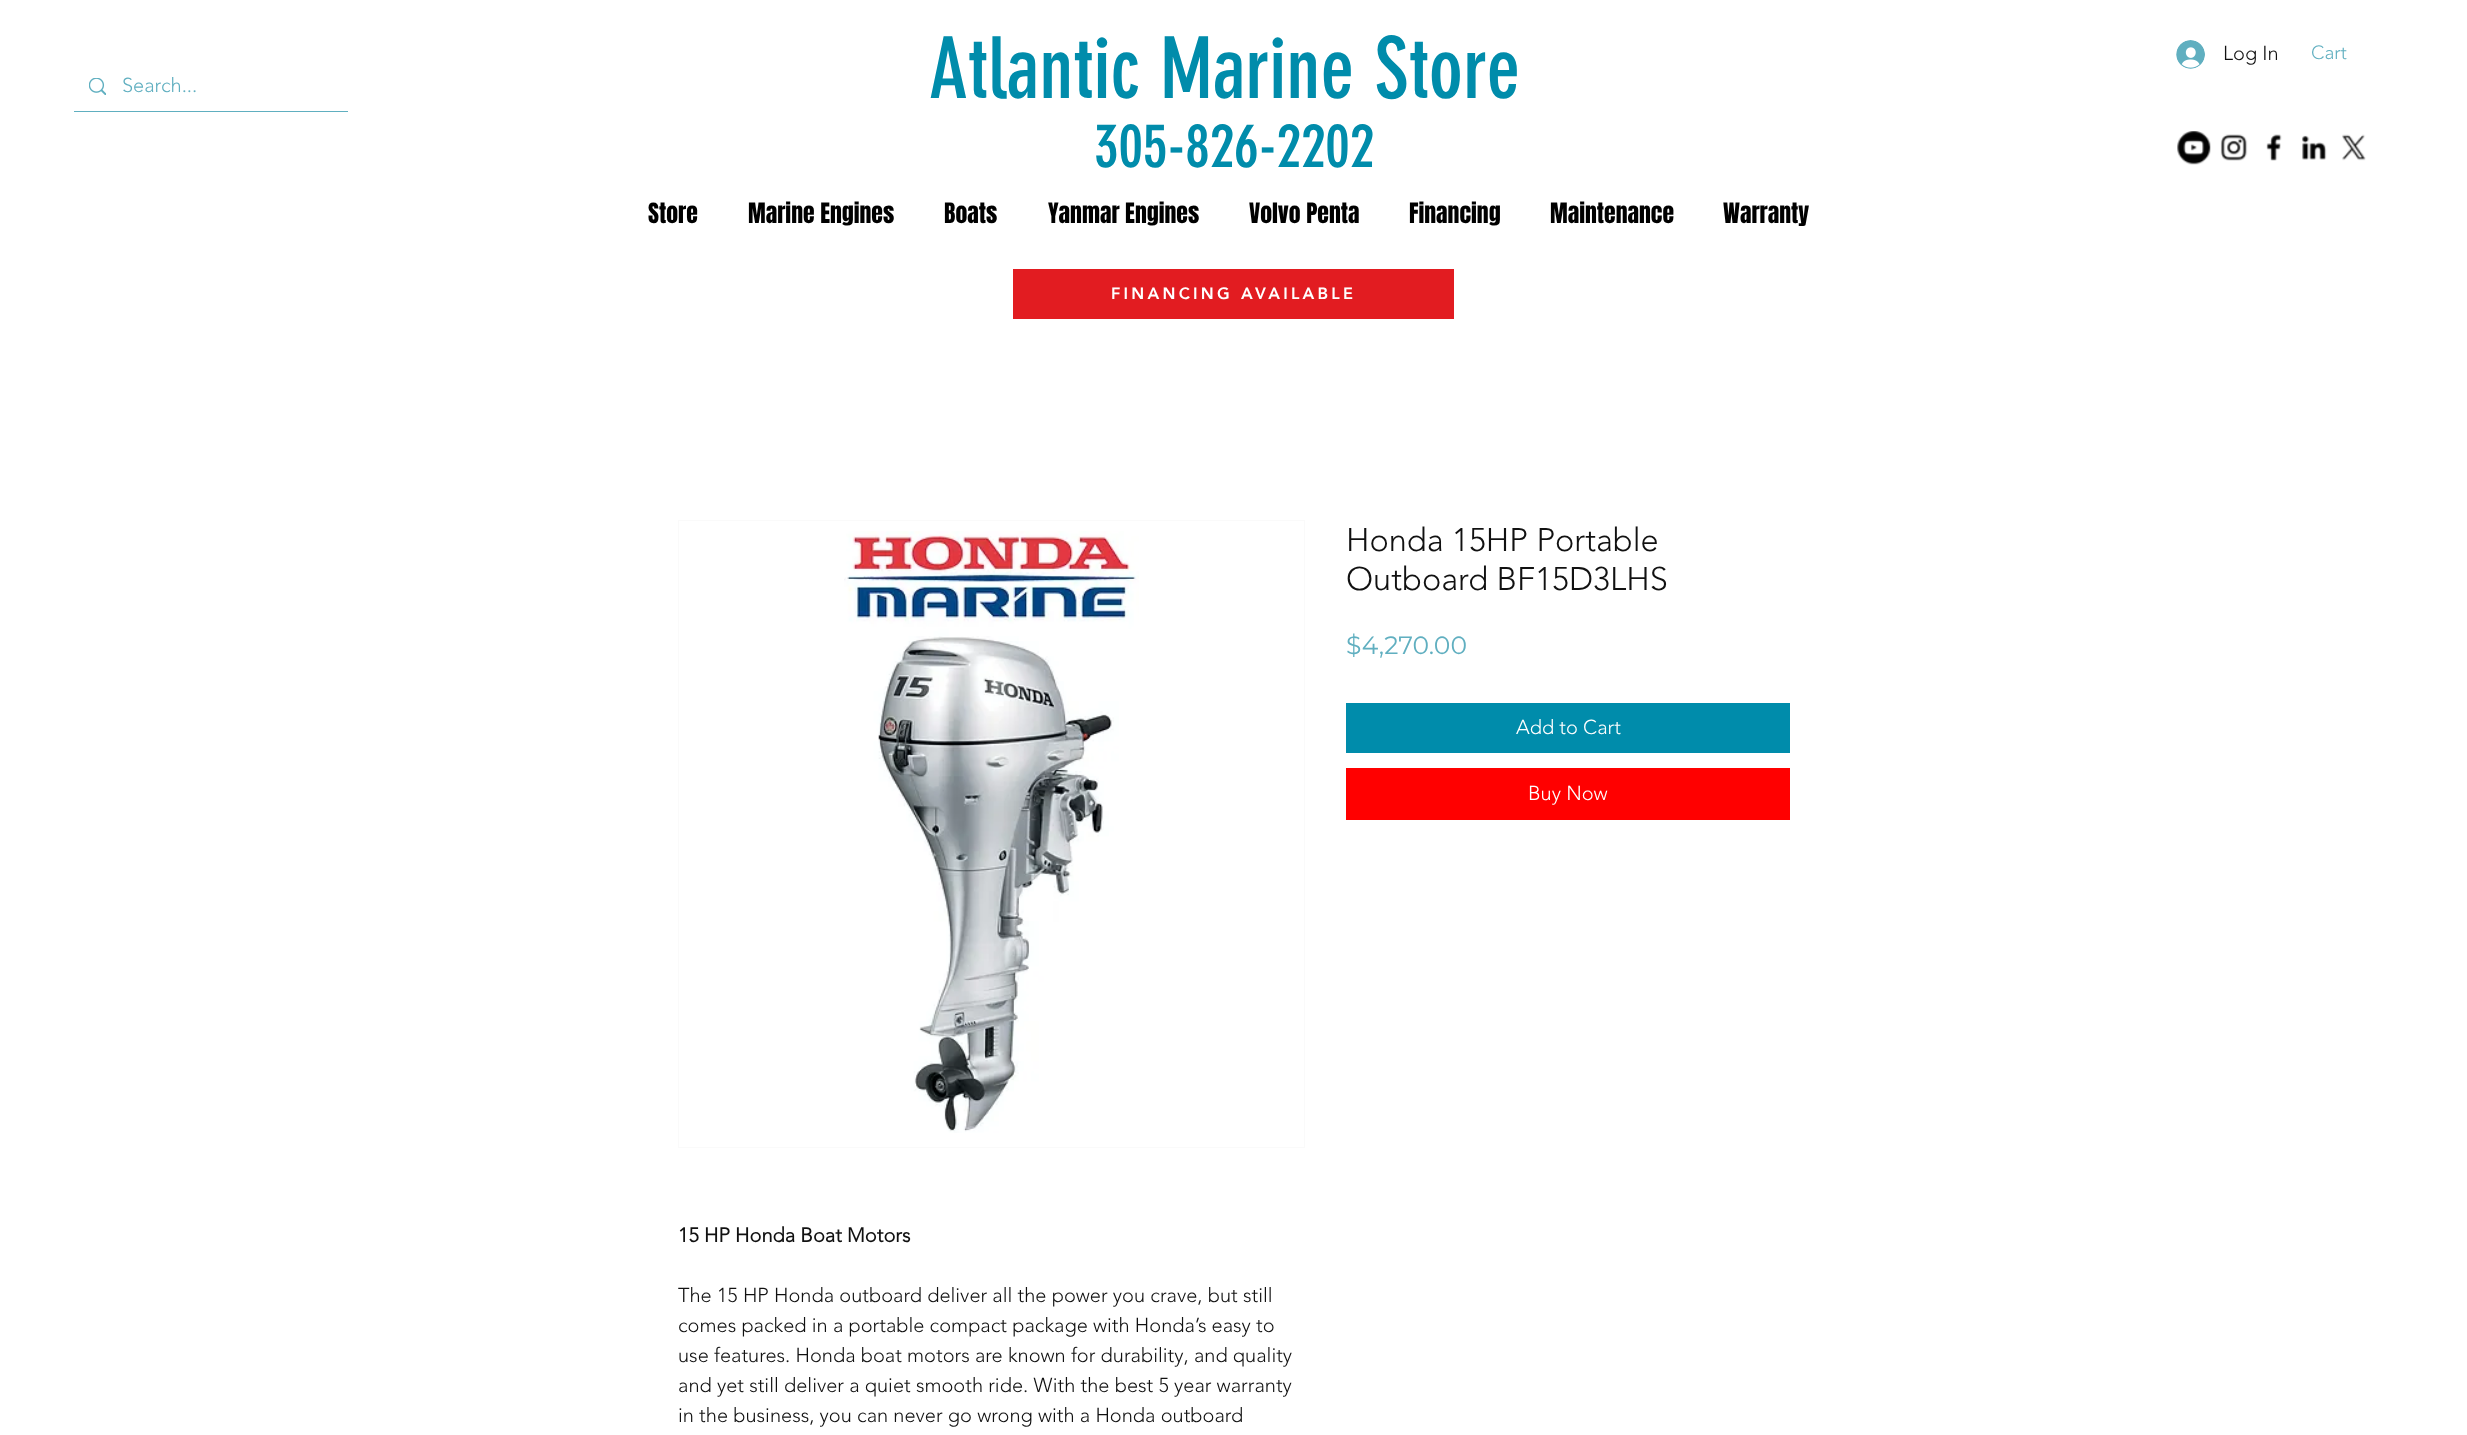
<svg xmlns="http://www.w3.org/2000/svg" width="2467" height="1435" viewBox="0 0 2467 1435">
  <rect width="100%" height="100%" fill="#ffffff"/>
  <text x="929" y="98" font-family="'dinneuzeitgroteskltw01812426'" font-size="83.75" fill="#008cab">Atlantic Marine Store</text>
  <text x="1094" y="167" font-family="'dinneuzeitgroteskltw01812426'" font-size="60" fill="#008cab">305-826-2202</text>
  <image x="2176" y="40" width="29" height="29" href="img1.png"/>
  <text x="2223" y="60" font-family="'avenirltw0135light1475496'" font-size="20" font-weight="300" fill="#111111">Log In</text>
  <text x="2311" y="59" font-family="'avenirltw0135light1475496'" font-size="19" font-weight="300" fill="#60afc0">Cart</text>
  <image x="2177" y="131" width="34" height="34" href="img2.png"/>
  <image x="2220" y="134" width="28" height="27" href="img3.png"/>
  <image x="2266" y="134" width="16" height="27" href="img4.png"/>
  <image x="2302" y="135" width="25" height="25" href="img5.png"/>
  <image x="2342" y="134" width="24" height="27" href="img6.png"/>
  <rect x="74" y="111" width="274" height="1" fill="#60afc0"/>
  <image x="89" y="78" width="17" height="17" href="img7.png"/>
  <text x="122" y="92" font-family="'avenirltw0135light1475496'" font-size="20" font-weight="300" fill="#60afc0">Search...</text>
  <text x="648" y="223" font-family="Anton" font-size="23.75" fill="#000000">Store</text>
  <text x="748" y="223" font-family="Anton" font-size="23.75" fill="#000000">Marine Engines</text>
  <text x="944" y="223" font-family="Anton" font-size="23.75" fill="#000000">Boats</text>
  <text x="1048" y="223" font-family="Anton" font-size="23.75" fill="#000000">Yanmar Engines</text>
  <text x="1249" y="223" font-family="Anton" font-size="23.75" fill="#000000">Volvo Penta</text>
  <text x="1409" y="223" font-family="Anton" font-size="23.75" fill="#000000">Financing</text>
  <text x="1550" y="223" font-family="Anton" font-size="23.75" fill="#000000">Maintenance</text>
  <text x="1723" y="223" font-family="Anton" font-size="23.75" fill="#000000">Warranty</text>
  <rect x="1013" y="269" width="441" height="50" fill="#e21c21"/>
  <text x="1111" y="299" font-family="'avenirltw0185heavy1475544'" font-size="16.25" font-weight="900" letter-spacing="3.25" fill="#ffffff">FINANCING AVAILABLE</text>
  <text x="1346" y="551" font-family="'avenirltw0135light1475496'" font-size="32.5" font-weight="300" fill="#111111">Honda 15HP Portable</text>
  <text x="1346" y="590" font-family="'avenirltw0135light1475496'" font-size="32.5" font-weight="300" fill="#111111">Outboard BF15D3LHS</text>
  <text x="1346" y="654" font-family="Montserrat" font-size="25" fill="#60afc0">$4,270.00</text>
  <rect x="1346" y="703" width="444" height="50" fill="#008cab"/>
  <text x="1516" y="734" font-family="'avenirltw0135light1475496'" font-size="20" font-weight="300" fill="#ffffff">Add to Cart</text>
  <rect x="1346" y="768" width="444" height="52" fill="#ff0000"/>
  <text x="1528" y="800" font-family="'avenirltw0135light1475496'" font-size="20" font-weight="300" fill="#ffffff">Buy Now</text>
  <rect x="678.5" y="520.5" width="626" height="627" fill="none" stroke="#fafafa"/>
  <image x="844" y="531" width="295" height="602" href="img8.png"/>
  <text x="678" y="1242" font-family="'avenirltw0135light1475496'" font-size="20" font-weight="bold" fill="#111111">15 HP Honda Boat Motors</text>
  <text x="678" y="1302" font-family="'avenirltw0135light1475496'" font-size="20" font-weight="300" fill="#111111">The 15 HP Honda outboard deliver all the power you crave, but still</text>
  <text x="678" y="1332" font-family="'avenirltw0135light1475496'" font-size="20" font-weight="300" fill="#111111">comes packed in a portable compact package with Honda’s easy to</text>
  <text x="678" y="1362" font-family="'avenirltw0135light1475496'" font-size="20" font-weight="300" fill="#111111">use features. Honda boat motors are known for durability, and quality</text>
  <text x="678" y="1392" font-family="'avenirltw0135light1475496'" font-size="20" font-weight="300" fill="#111111">and yet still deliver a quiet smooth ride. With the best 5 year warranty</text>
  <text x="678" y="1422" font-family="'avenirltw0135light1475496'" font-size="20" font-weight="300" fill="#111111">in the business, you can never go wrong with a Honda outboard</text>
</svg>
